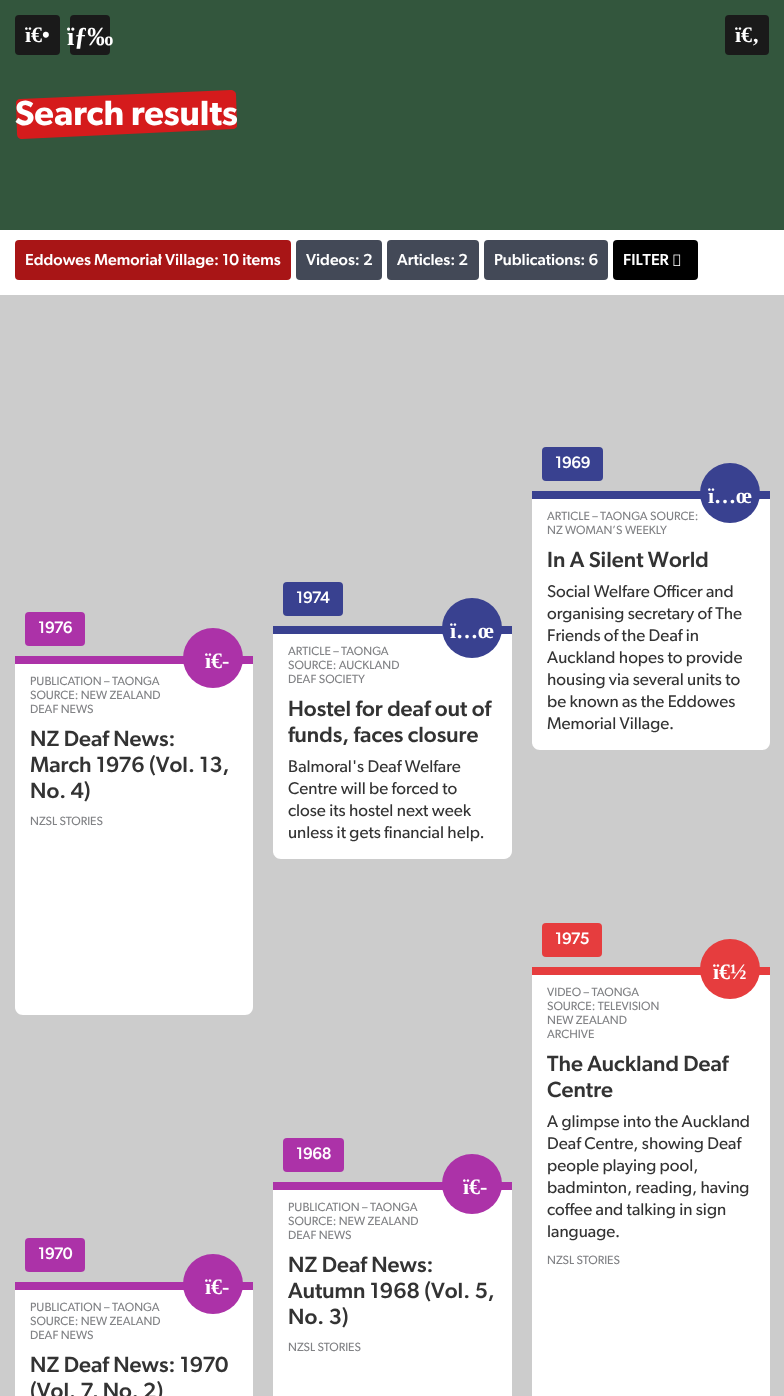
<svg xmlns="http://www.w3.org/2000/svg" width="784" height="1396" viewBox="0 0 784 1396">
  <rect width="100%" height="100%" fill="#cccccc"/>
  <rect x="0" y="0" width="784" height="230" fill="#33563d"/>
  <rect x="15" y="15" width="45" height="40" rx="4" fill="#1a1a1a"/>
  <text x="25" y="42" font-family="Liberation Serif" font-size="22" font-weight="bold" fill="#ffffff">ï€•</text>
  <rect x="70" y="15" width="40" height="40" rx="4" fill="#1a1a1a"/>
  <text x="67" y="45" font-family="Liberation Serif" font-size="26" font-weight="bold" fill="#ffffff">ïƒ‰</text>
  <rect x="725" y="15" width="44" height="40" rx="4" fill="#1a1a1a"/>
  <text x="735" y="42" font-family="Liberation Serif" font-size="22" font-weight="bold" fill="#ffffff">ï€‚</text>
  <path d="M20 99L231 90C233 90 236 92 236 94L237 126C237 127 236 128 234 129L22 139C19 139 17 137 17 134L16 102C17 100 18 99 20 99Z" fill="#d51b1c"/>
  <text x="15" y="125" font-family="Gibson" font-size="35" font-weight="600" fill="#ffffff">Search results</text>
  <rect x="0" y="230" width="784" height="65" fill="#ffffff"/>
  <rect x="15" y="240" width="276" height="40" rx="4" fill="#a81516"/>
  <text x="25" y="265" font-family="Gibson" font-size="16" font-weight="500" fill="#ffffff">Eddowes Memoriał Village: 10 items</text>
  <rect x="296" y="240" width="86" height="40" rx="4" fill="#434957"/>
  <text x="306" y="265" font-family="Gibson" font-size="16" font-weight="500" fill="#ffffff">Videos: 2</text>
  <rect x="387" y="240" width="92" height="40" rx="4" fill="#434957"/>
  <text x="397" y="265" font-family="Gibson" font-size="16" font-weight="500" fill="#ffffff">Articles: 2</text>
  <rect x="484" y="240" width="124" height="40" rx="4" fill="#434957"/>
  <text x="494" y="265" font-family="Gibson" font-size="16" font-weight="500" fill="#ffffff">Publications: 6</text>
  <rect x="613" y="240" width="85" height="40" rx="4" fill="#000000"/>
  <text x="623" y="265" font-family="Gibson" font-size="16" font-weight="500" fill="#ffffff">FILTER</text>
  <image x="673" y="254" width="8" height="12" href="img1.png"/>
  <rect x="15" y="656" width="238" height="8" fill="#ac32a8"/>
  <rect x="25" y="612" width="60" height="34" rx="4" fill="#ac32a8"/>
  <text x="38" y="633" font-family="Gibson" font-size="16" font-weight="bold" fill="#ffffff">1976</text>
  <path d="M15 664H253V1007C253 1011.5 249.5 1015 245 1015H23C18.5 1015 15 1011.5 15 1007Z" fill="#ffffff"/>
  <circle cx="213" cy="658" r="30" fill="#ac32a8"/>
  <text x="205" y="668" font-family="Liberation Serif" font-size="22" font-weight="bold" fill="#ffffff">ï€-</text>
  <text x="30" y="685" font-family="Gibson" font-size="12" fill="#818285">PUBLICATION – TAONGA</text>
  <text x="30" y="699" font-family="Gibson" font-size="12" fill="#818285">SOURCE: NEW ZEALAND</text>
  <text x="30" y="713" font-family="Gibson" font-size="12" fill="#818285">DEAF NEWS</text>
  <text x="30" y="746" font-family="Gibson" font-size="22" font-weight="500" fill="#333333">NZ Deaf News:</text>
  <text x="30" y="772" font-family="Gibson" font-size="22" font-weight="500" fill="#333333">March 1976 (Vol. 13,</text>
  <text x="30" y="798" font-family="Gibson" font-size="22" font-weight="500" fill="#333333">No. 4)</text>
  <text x="30" y="825" font-family="Gibson" font-size="12" fill="#818285">NZSL STORIES</text>
  <rect x="273" y="626" width="239" height="8" fill="#394190"/>
  <rect x="283" y="582" width="60" height="34" rx="4" fill="#394190"/>
  <text x="296" y="603" font-family="Gibson" font-size="16" font-weight="bold" fill="#ffffff">1974</text>
  <path d="M273 634H512V851C512 855.5 508.5 859 504 859H281C276.5 859 273 855.5 273 851Z" fill="#ffffff"/>
  <circle cx="472" cy="628" r="30" fill="#394190"/>
  <text x="450" y="638" font-family="Liberation Serif" font-size="22" font-weight="bold" fill="#ffffff">ï…œ</text>
  <text x="288" y="655" font-family="Gibson" font-size="12" fill="#818285">ARTICLE – TAONGA</text>
  <text x="288" y="669" font-family="Gibson" font-size="12" fill="#818285">SOURCE: AUCKLAND</text>
  <text x="288" y="683" font-family="Gibson" font-size="12" fill="#818285">DEAF SOCIETY</text>
  <text x="288" y="716" font-family="Gibson" font-size="22" font-weight="500" fill="#333333">Hostel for deaf out of</text>
  <text x="288" y="742" font-family="Gibson" font-size="22" font-weight="500" fill="#333333">funds, faces closure</text>
  <text x="288" y="772" font-family="Gibson" font-size="17" fill="#333333">Balmoral's Deaf Welfare</text>
  <text x="288" y="794" font-family="Gibson" font-size="17" fill="#333333">Centre will be forced to</text>
  <text x="288" y="816" font-family="Gibson" font-size="17" fill="#333333">close its hostel next week</text>
  <text x="288" y="838" font-family="Gibson" font-size="17" fill="#333333">unless it gets financial help.</text>
  <rect x="532" y="491" width="238" height="8" fill="#394190"/>
  <rect x="542" y="447" width="61" height="34" rx="4" fill="#394190"/>
  <text x="555" y="468" font-family="Gibson" font-size="16" font-weight="bold" fill="#ffffff">1969</text>
  <path d="M532 499H770V742C770 746.5 766.5 750 762 750H540C535.5 750 532 746.5 532 742Z" fill="#ffffff"/>
  <circle cx="730" cy="493" r="30" fill="#394190"/>
  <text x="708" y="503" font-family="Liberation Serif" font-size="22" font-weight="bold" fill="#ffffff">ï…œ</text>
  <text x="547" y="520" font-family="Gibson" font-size="12" fill="#818285">ARTICLE – TAONGA SOURCE:</text>
  <text x="547" y="534" font-family="Gibson" font-size="12" fill="#818285">NZ WOMAN’S WEEKLY</text>
  <text x="547" y="567" font-family="Gibson" font-size="22" font-weight="500" fill="#333333">In A Silent World</text>
  <text x="547" y="597" font-family="Gibson" font-size="17" fill="#333333">Social Welfare Officer and</text>
  <text x="547" y="619" font-family="Gibson" font-size="17" fill="#333333">organising secretary of The</text>
  <text x="547" y="641" font-family="Gibson" font-size="17" fill="#333333">Friends of the Deaf in</text>
  <text x="547" y="663" font-family="Gibson" font-size="17" fill="#333333">Auckland hopes to provide</text>
  <text x="547" y="685" font-family="Gibson" font-size="17" fill="#333333">housing via several units to</text>
  <text x="547" y="707" font-family="Gibson" font-size="17" fill="#333333">be known as the Eddowes</text>
  <text x="547" y="729" font-family="Gibson" font-size="17" fill="#333333">Memorial Village.</text>
  <rect x="15" y="1282" width="238" height="8" fill="#ac32a8"/>
  <rect x="25" y="1238" width="60" height="34" rx="4" fill="#ac32a8"/>
  <text x="38" y="1259" font-family="Gibson" font-size="16" font-weight="bold" fill="#ffffff">1970</text>
  <rect x="15" y="1290" width="238" height="106" fill="#ffffff"/>
  <circle cx="213" cy="1284" r="30" fill="#ac32a8"/>
  <text x="205" y="1294" font-family="Liberation Serif" font-size="22" font-weight="bold" fill="#ffffff">ï€-</text>
  <text x="30" y="1311" font-family="Gibson" font-size="12" fill="#818285">PUBLICATION – TAONGA</text>
  <text x="30" y="1325" font-family="Gibson" font-size="12" fill="#818285">SOURCE: NEW ZEALAND</text>
  <text x="30" y="1339" font-family="Gibson" font-size="12" fill="#818285">DEAF NEWS</text>
  <text x="30" y="1372" font-family="Gibson" font-size="22" font-weight="500" fill="#333333">NZ Deaf News: 1970</text>
  <text x="30" y="1398" font-family="Gibson" font-size="22" font-weight="500" fill="#333333">(Vol. 7, No. 2)</text>
  <rect x="273" y="1182" width="239" height="8" fill="#ac32a8"/>
  <rect x="283" y="1138" width="61" height="34" rx="4" fill="#ac32a8"/>
  <text x="296" y="1159" font-family="Gibson" font-size="16" font-weight="bold" fill="#ffffff">1968</text>
  <rect x="273" y="1190" width="239" height="206" fill="#ffffff"/>
  <circle cx="472" cy="1184" r="30" fill="#ac32a8"/>
  <text x="463" y="1194" font-family="Liberation Serif" font-size="22" font-weight="bold" fill="#ffffff">ï€-</text>
  <text x="288" y="1211" font-family="Gibson" font-size="12" fill="#818285">PUBLICATION – TAONGA</text>
  <text x="288" y="1225" font-family="Gibson" font-size="12" fill="#818285">SOURCE: NEW ZEALAND</text>
  <text x="288" y="1239" font-family="Gibson" font-size="12" fill="#818285">DEAF NEWS</text>
  <text x="288" y="1272" font-family="Gibson" font-size="22" font-weight="500" fill="#333333">NZ Deaf News:</text>
  <text x="288" y="1298" font-family="Gibson" font-size="22" font-weight="500" fill="#333333">Autumn 1968 (Vol. 5,</text>
  <text x="288" y="1324" font-family="Gibson" font-size="22" font-weight="500" fill="#333333">No. 3)</text>
  <text x="288" y="1351" font-family="Gibson" font-size="12" fill="#818285">NZSL STORIES</text>
  <rect x="532" y="967" width="238" height="8" fill="#e63d3e"/>
  <rect x="542" y="923" width="60" height="34" rx="4" fill="#e63d3e"/>
  <text x="555" y="944" font-family="Gibson" font-size="16" font-weight="bold" fill="#ffffff">1975</text>
  <rect x="532" y="975" width="238" height="421" fill="#ffffff"/>
  <circle cx="730" cy="969" r="30" fill="#e63d3e"/>
  <text x="713" y="979" font-family="Liberation Serif" font-size="22" font-weight="bold" fill="#ffffff">ï€½</text>
  <text x="547" y="996" font-family="Gibson" font-size="12" fill="#818285">VIDEO – TAONGA</text>
  <text x="547" y="1010" font-family="Gibson" font-size="12" fill="#818285">SOURCE: TELEVISION</text>
  <text x="547" y="1024" font-family="Gibson" font-size="12" fill="#818285">NEW ZEALAND</text>
  <text x="547" y="1038" font-family="Gibson" font-size="12" fill="#818285">ARCHIVE</text>
  <text x="547" y="1071" font-family="Gibson" font-size="22" font-weight="500" fill="#333333">The Auckland Deaf</text>
  <text x="547" y="1097" font-family="Gibson" font-size="22" font-weight="500" fill="#333333">Centre</text>
  <text x="547" y="1127" font-family="Gibson" font-size="17" fill="#333333">A glimpse into the Auckland</text>
  <text x="547" y="1149" font-family="Gibson" font-size="17" fill="#333333">Deaf Centre, showing Deaf</text>
  <text x="547" y="1171" font-family="Gibson" font-size="17" fill="#333333">people playing pool,</text>
  <text x="547" y="1193" font-family="Gibson" font-size="17" fill="#333333">badminton, reading, having</text>
  <text x="547" y="1215" font-family="Gibson" font-size="17" fill="#333333">coffee and talking in sign</text>
  <text x="547" y="1237" font-family="Gibson" font-size="17" fill="#333333">language.</text>
  <text x="547" y="1264" font-family="Gibson" font-size="12" fill="#818285">NZSL STORIES</text>
</svg>
